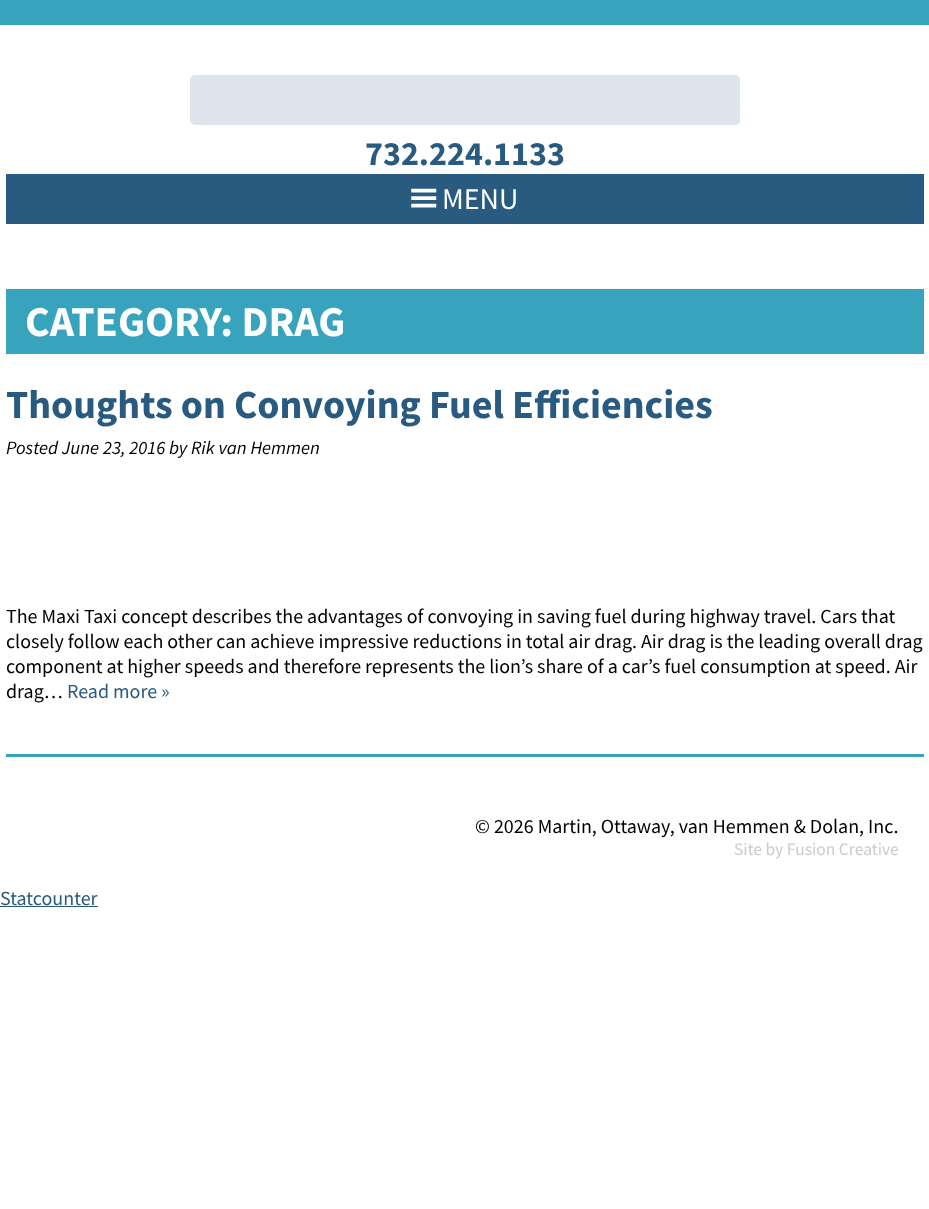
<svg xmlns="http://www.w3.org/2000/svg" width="929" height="1209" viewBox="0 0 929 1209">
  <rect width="100%" height="100%" fill="#ffffff"/>
  <rect x="0" y="0" width="929" height="25" fill="#37a3bd"/>
  <rect x="190" y="75" width="550" height="50" rx="5" fill="#dde4eb"/>
  <text x="365" y="165" font-family="Source Sans Pro" font-size="34" font-weight="bold" fill="#295a80">732.224.1133</text>
  <rect x="6" y="174" width="918" height="50" fill="#295a80"/>
  <image x="411" y="188" width="26" height="20" href="img1.png"/>
  <text x="442" y="209" font-family="Source Sans Pro" font-size="30" fill="#ffffff">MENU</text>
  <rect x="6" y="289" width="918" height="65" fill="#37a3bd"/>
  <text x="25" y="336" font-family="Source Sans Pro" font-size="42.5" font-weight="bold" fill="#ffffff">CATEGORY: DRAG</text>
  <rect x="6" y="754" width="918" height="3" fill="#37a3bd"/>
  <text x="6" y="418" font-family="Source Sans Pro" font-size="40" font-weight="bold" fill="#295a80">Thoughts on Convoying Fuel Efficiencies</text>
  <text x="6" y="454" font-family="Source Sans Pro" font-size="18.75" font-style="italic" fill="#000000">Posted June 23, 2016 by Rik van Hemmen</text>
  <text x="6" y="623" font-family="Source Sans Pro" font-size="20" fill="#000000">The Maxi Taxi concept describes the advantages of convoying in saving fuel during highway travel. Cars that</text>
  <text x="6" y="648" font-family="Source Sans Pro" font-size="20" fill="#000000">closely follow each other can achieve impressive reductions in total air drag. Air drag is the leading overall drag</text>
  <text x="6" y="673" font-family="Source Sans Pro" font-size="20" fill="#000000">component at higher speeds and therefore represents the lion’s share of a car’s fuel consumption at speed. Air</text>
  <text x="6" y="698" font-family="Source Sans Pro" font-size="20" fill="#000000">drag…</text>
  <text x="67" y="698" font-family="Source Sans Pro" font-size="20" fill="#295a80">Read more »</text>
  <text x="475" y="833" font-family="Source Sans Pro" font-size="20" fill="#000000">© 2026 Martin, Ottaway, van Hemmen &amp; Dolan, Inc.</text>
  <text x="734" y="855" font-family="Source Sans Pro" font-size="17.5" fill="#cbcbcb">Site by Fusion Creative</text>
  <text x="0" y="905" font-family="Source Sans Pro" font-size="20" fill="#295a80">Statcounter</text>
  <rect x="0" y="906" width="98" height="1" fill="#295a80"/>
</svg>
